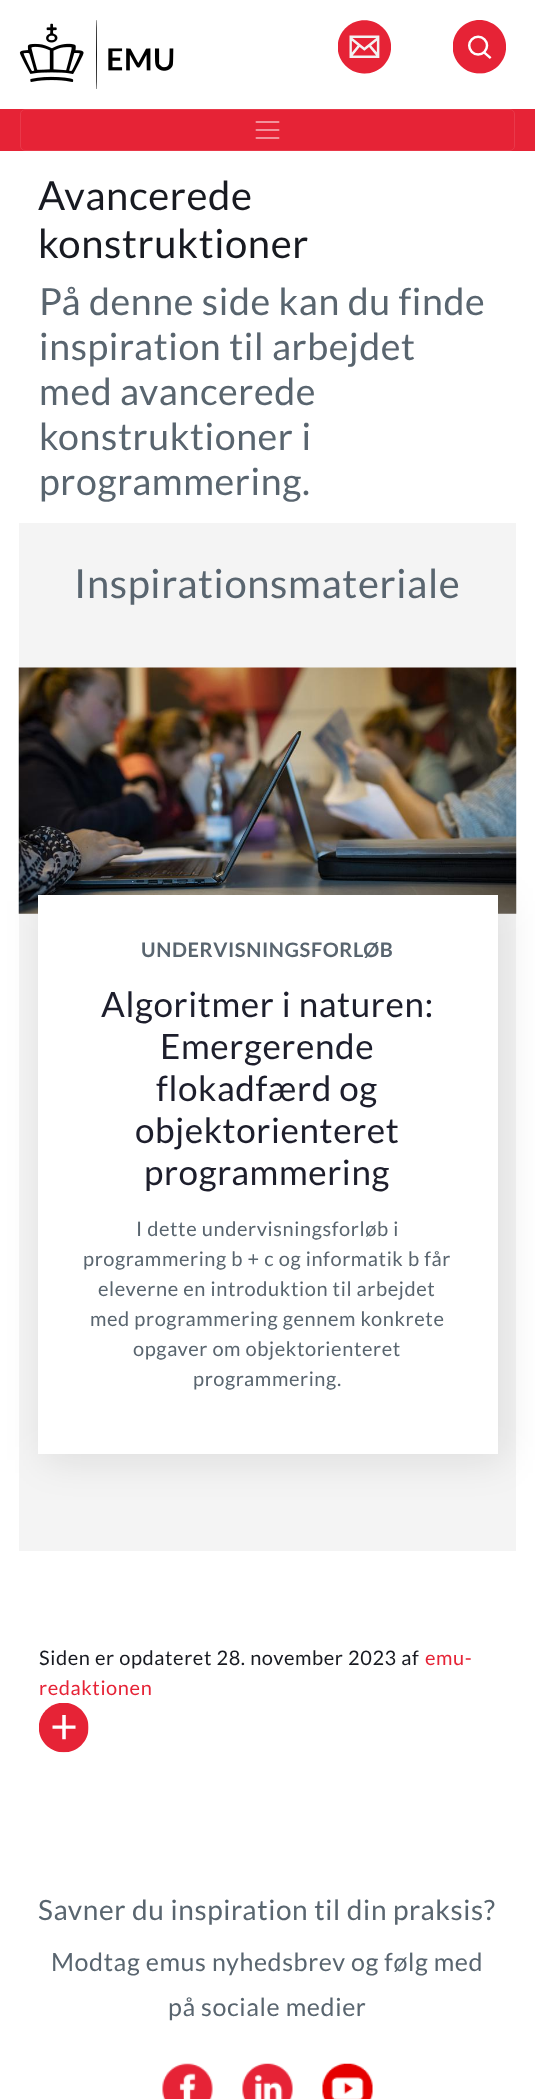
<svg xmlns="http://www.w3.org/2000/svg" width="535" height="2099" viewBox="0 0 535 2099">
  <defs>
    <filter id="blur1" x="-50%" y="-200%" width="200%" height="500%"><feGaussianBlur stdDeviation="19"/></filter>
  </defs>
  <rect width="100%" height="100%" fill="#ffffff"/>
  <image x="19" y="20" width="155" height="69" href="img1.png"/>
  <image x="338" y="20" width="53" height="54" href="img2.png"/>
  <image x="453" y="20" width="53" height="54" href="img3.png"/>
  <rect x="0" y="109" width="535" height="42" fill="#e62336"/>
  <rect x="20.5" y="109.5" width="494" height="41" rx="4.5" fill="none" stroke="#e9394a"/>
  <image x="255" y="121" width="25" height="18" href="img4.png"/>
  <text x="38" y="210" font-family="Lato" font-size="40" letter-spacing="0.6" fill="#181a21">Avancerede</text>
  <text x="38" y="258" font-family="Lato" font-size="40" letter-spacing="0.6" fill="#181a21">konstruktioner</text>
  <text x="39" y="315" font-family="Lato" font-size="37.5" letter-spacing="0.6" fill="#59656f">På denne side kan du finde</text>
  <text x="39" y="360" font-family="Lato" font-size="37.5" letter-spacing="0.6" fill="#59656f">inspiration til arbejdet</text>
  <text x="39" y="405" font-family="Lato" font-size="37.5" letter-spacing="0.6" fill="#59656f">med avancerede</text>
  <text x="39" y="450" font-family="Lato" font-size="37.5" letter-spacing="0.6" fill="#59656f">konstruktioner i</text>
  <text x="39" y="495" font-family="Lato" font-size="37.5" letter-spacing="0.6" fill="#59656f">programmering.</text>
  <rect x="19" y="523" width="497" height="1028" fill="#f4f4f4"/>
  <text x="74" y="598" font-family="Lato" font-size="40" letter-spacing="0.6" fill="#59656f">Inspirationsmateriale</text>
  <image x="18" y="667" width="499" height="247" href="img5.png"/>
  <rect x="44" y="901" width="460" height="559" fill="#000000" fill-opacity="0.1" filter="url(#blur1)"/>
  <rect x="38" y="895" width="460" height="559" fill="#ffffff"/>
  <text x="141" y="957" font-family="Lato" font-size="20" font-weight="bold" letter-spacing="0.6" fill="#59656f">UNDERVISNINGSFORLØB</text>
  <text x="101" y="1017" font-family="Lato" font-size="35" letter-spacing="0.6" fill="#1d1e2c">Algoritmer i naturen:</text>
  <text x="160" y="1059" font-family="Lato" font-size="35" letter-spacing="0.6" fill="#1d1e2c">Emergerende</text>
  <text x="156" y="1101" font-family="Lato" font-size="35" letter-spacing="0.6" fill="#1d1e2c">flokadfærd og</text>
  <text x="135" y="1143" font-family="Lato" font-size="35" letter-spacing="0.6" fill="#1d1e2c">objektorienteret</text>
  <text x="144" y="1185" font-family="Lato" font-size="35" letter-spacing="0.6" fill="#1d1e2c">programmering</text>
  <text x="136" y="1236" font-family="Lato" font-size="20" letter-spacing="0.6" fill="#59656f">I dette undervisningsforløb i</text>
  <text x="83" y="1266" font-family="Lato" font-size="20" letter-spacing="0.6" fill="#59656f">programmering b + c og informatik b får</text>
  <text x="98" y="1296" font-family="Lato" font-size="20" letter-spacing="0.6" fill="#59656f">eleverne en introduktion til arbejdet</text>
  <text x="90" y="1326" font-family="Lato" font-size="20" letter-spacing="0.6" fill="#59656f">med programmering gennem konkrete</text>
  <text x="133" y="1356" font-family="Lato" font-size="20" letter-spacing="0.6" fill="#59656f">opgaver om objektorienteret</text>
  <text x="193" y="1386" font-family="Lato" font-size="20" letter-spacing="0.6" fill="#59656f">programmering.</text>
  <text x="39" y="1665" font-family="Lato" font-size="20" letter-spacing="0.6" fill="#181a21">Siden er opdateret 28. november 2023 af</text>
  <text x="425" y="1665" font-family="Lato" font-size="20" letter-spacing="0.6" fill="#e62336">emu-</text>
  <text x="39" y="1695" font-family="Lato" font-size="20" letter-spacing="0.6" fill="#e62336">redaktionen</text>
  <image x="39" y="1703" width="50" height="50" href="img6.png"/>
  <text x="38" y="1920" font-family="Lato" font-size="28" letter-spacing="0.6" fill="#59656f">Savner du inspiration til din praksis?</text>
  <text x="51" y="1971" font-family="Lato" font-size="25" letter-spacing="0.6" fill="#59656f">Modtag emus nyhedsbrev og følg med</text>
  <text x="168" y="2016" font-family="Lato" font-size="25" letter-spacing="0.6" fill="#59656f">på sociale medier</text>
  <image x="162" y="2063" width="51" height="36" href="img7.png"/>
  <image x="242" y="2063" width="51" height="36" href="img8.png"/>
  <image x="322" y="2063" width="51" height="36" href="img9.png"/>
</svg>
